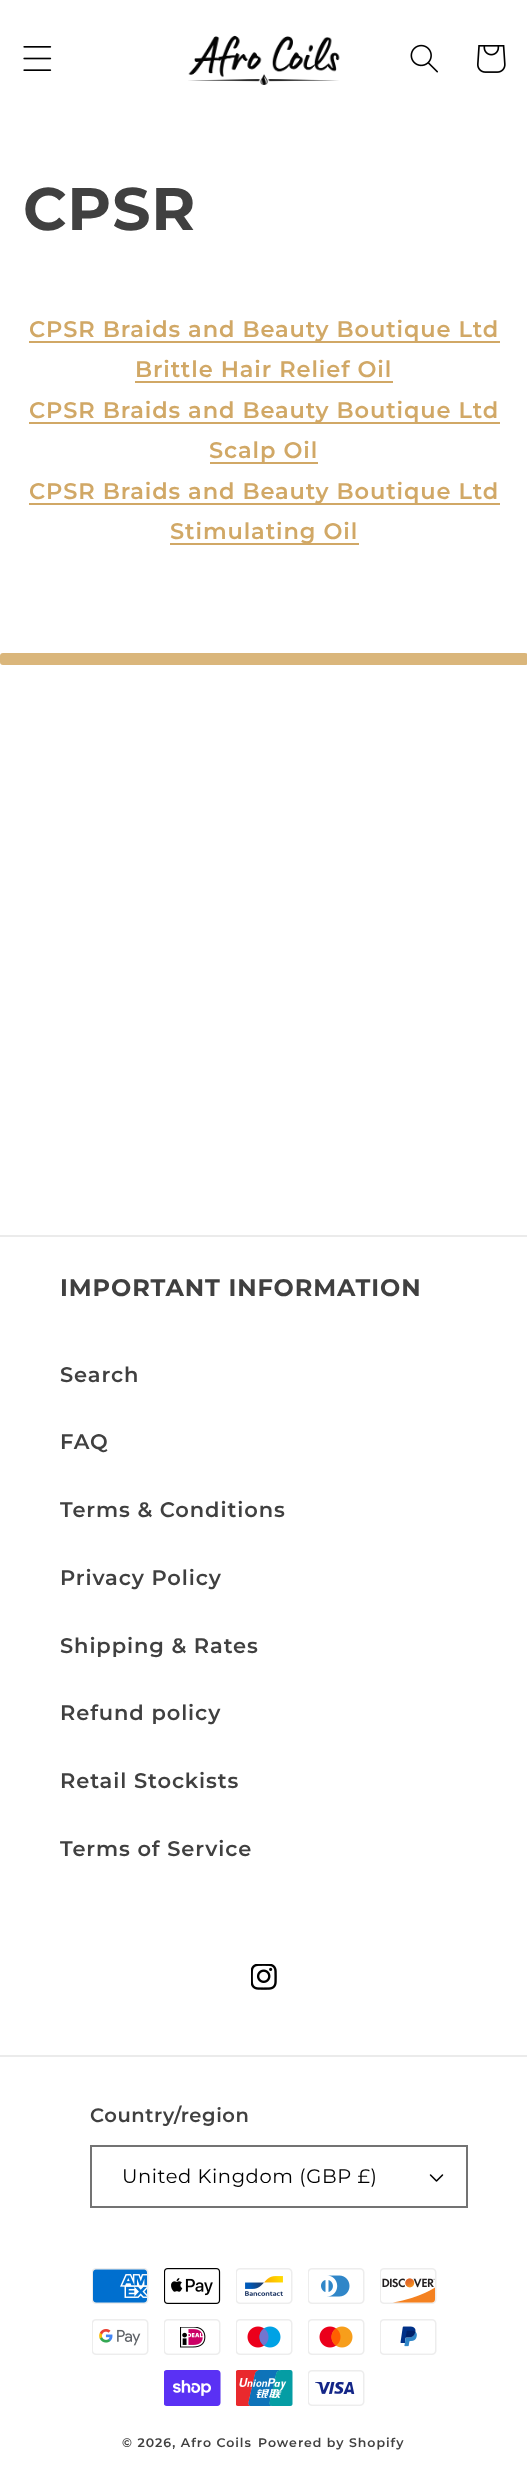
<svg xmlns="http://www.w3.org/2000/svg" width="527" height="2476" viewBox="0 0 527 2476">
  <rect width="100%" height="100%" fill="#ffffff"/>
  <image x="23" y="46" width="29" height="25" href="img1.png"/>
  <image x="188" y="35" width="152" height="50" href="img2.png"/>
  <image x="410" y="44" width="28" height="29" href="img3.png"/>
  <image x="477" y="45" width="29" height="28" href="img4.png"/>
  <text x="23" y="230" font-family="Montserrat" font-size="60" font-weight="bold" letter-spacing="0.9" fill="#404040">CPSR</text>
  <rect x="29" y="341" width="471" height="2" fill="#d1a866"/>
  <text x="29" y="337" font-family="Montserrat" font-size="22.5" font-weight="600" letter-spacing="0.9" fill="#d1a866">CPSR Braids and Beauty Boutique Ltd</text>
  <text x="135" y="377" font-family="Montserrat" font-size="22.5" font-weight="600" letter-spacing="0.9" fill="#d1a866">Brittle Hair Relief Oil</text>
  <rect x="135" y="381" width="258" height="2" fill="#d1a866"/>
  <rect x="29" y="422" width="471" height="2" fill="#d1a866"/>
  <text x="29" y="418" font-family="Montserrat" font-size="22.5" font-weight="600" letter-spacing="0.9" fill="#d1a866">CPSR Braids and Beauty Boutique Ltd</text>
  <rect x="210" y="462" width="108" height="2" fill="#d1a866"/>
  <text x="209" y="458" font-family="Montserrat" font-size="22.5" font-weight="600" letter-spacing="0.9" fill="#d1a866">Scalp Oil</text>
  <rect x="29" y="503" width="471" height="2" fill="#d1a866"/>
  <text x="29" y="499" font-family="Montserrat" font-size="22.5" font-weight="600" letter-spacing="0.9" fill="#d1a866">CPSR Braids and Beauty Boutique Ltd</text>
  <rect x="170" y="543" width="189" height="2" fill="#d1a866"/>
  <text x="170" y="539" font-family="Montserrat" font-size="22.5" font-weight="600" letter-spacing="0.9" fill="#d1a866">Stimulating Oil</text>
  <rect x="0" y="653" width="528" height="12" rx="3" fill="#dab67b"/>
  <rect x="0" y="1235" width="527" height="2" fill="#ebebeb"/>
  <text x="60" y="1296" font-family="Montserrat" font-size="24" font-weight="bold" letter-spacing="0.9" fill="#404040">IMPORTANT INFORMATION</text>
  <text x="60" y="1382" font-family="Montserrat" font-size="21" font-weight="600" letter-spacing="0.9" fill="#404040">Search</text>
  <text x="60" y="1449" font-family="Montserrat" font-size="21" font-weight="600" letter-spacing="0.9" fill="#404040">FAQ</text>
  <text x="60" y="1517" font-family="Montserrat" font-size="21" font-weight="600" letter-spacing="0.9" fill="#404040">Terms &amp; Conditions</text>
  <text x="60" y="1585" font-family="Montserrat" font-size="21" font-weight="600" letter-spacing="0.9" fill="#404040">Privacy Policy</text>
  <text x="60" y="1653" font-family="Montserrat" font-size="21" font-weight="600" letter-spacing="0.9" fill="#404040">Shipping &amp; Rates</text>
  <text x="60" y="1720" font-family="Montserrat" font-size="21" font-weight="600" letter-spacing="0.9" fill="#404040">Refund policy</text>
  <text x="60" y="1788" font-family="Montserrat" font-size="21" font-weight="600" letter-spacing="0.9" fill="#404040">Retail Stockists</text>
  <text x="60" y="1856" font-family="Montserrat" font-size="21" font-weight="600" letter-spacing="0.9" fill="#404040">Terms of Service</text>
  <image x="251" y="1964" width="26" height="26" href="img5.png"/>
  <rect x="0" y="2055" width="527" height="2" fill="#ebebeb"/>
  <text x="90" y="2122" font-family="Montserrat" font-size="19.5" font-weight="600" letter-spacing="0.6" fill="#404040">Country/region</text>
  <image x="429" y="2174" width="15" height="8" href="img6.png"/>
  <rect x="91" y="2146" width="376" height="61" fill="none" stroke="#737373" stroke-width="2"/>
  <text x="122" y="2183" font-family="Montserrat" font-size="19.5" letter-spacing="0.6" fill="#000000">United Kingdom (GBP £)</text>
  <image x="92" y="2268" width="57" height="36" href="img7.png"/>
  <image x="164" y="2268" width="57" height="36" href="img8.png"/>
  <image x="236" y="2268" width="57" height="36" href="img9.png"/>
  <image x="308" y="2268" width="57" height="36" href="img10.png"/>
  <image x="380" y="2268" width="57" height="36" href="img11.png"/>
  <image x="92" y="2319" width="57" height="36" href="img12.png"/>
  <image x="164" y="2319" width="57" height="36" href="img13.png"/>
  <image x="236" y="2319" width="57" height="36" href="img14.png"/>
  <image x="308" y="2319" width="57" height="36" href="img15.png"/>
  <image x="380" y="2319" width="57" height="36" href="img16.png"/>
  <image x="164" y="2370" width="57" height="36" href="img17.png"/>
  <image x="236" y="2370" width="57" height="36" href="img18.png"/>
  <image x="308" y="2370" width="57" height="36" href="img19.png"/>
  <text x="122" y="2447" font-family="Montserrat" font-size="12.5" font-weight="600" letter-spacing="1" fill="#404040">© 2026, Afro Coils</text>
  <text x="258" y="2447" font-family="Montserrat" font-size="12.5" font-weight="600" letter-spacing="1" fill="#404040">Powered by Shopify</text>
</svg>
